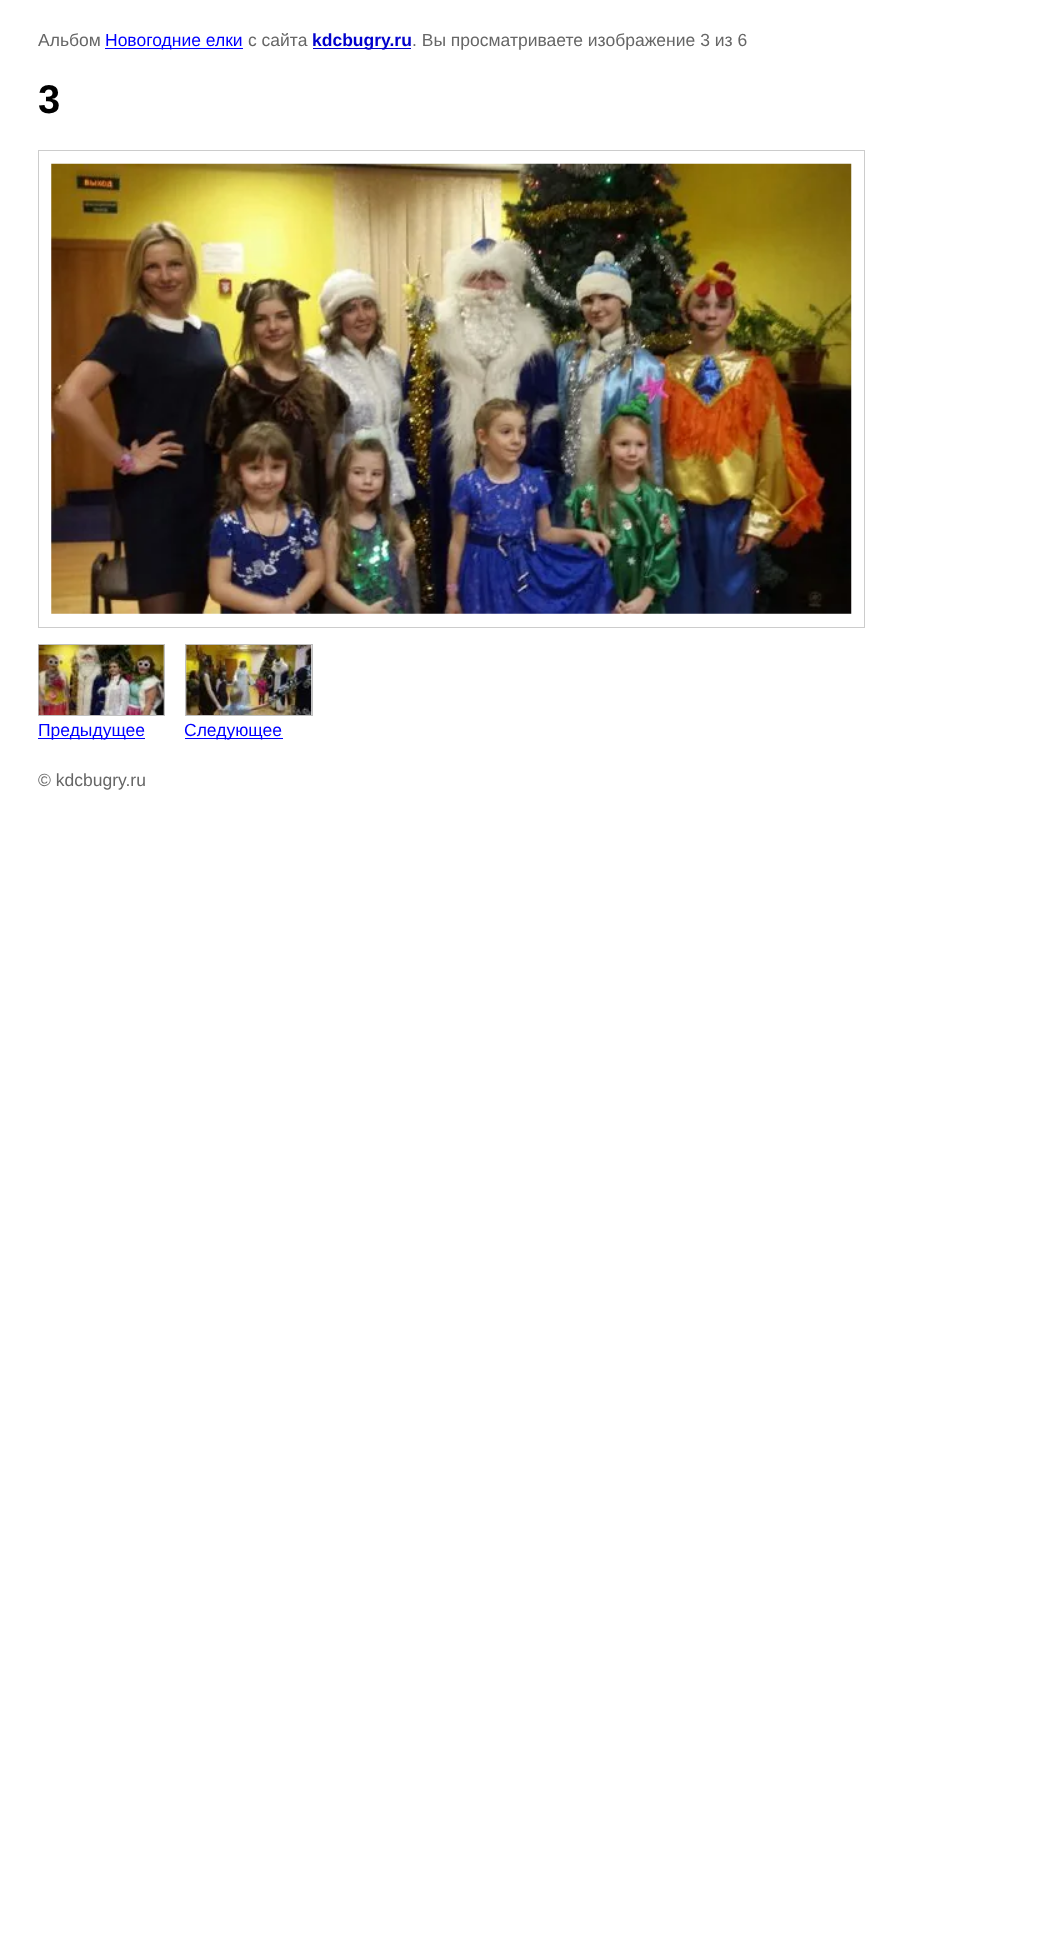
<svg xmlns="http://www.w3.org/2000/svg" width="1058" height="1946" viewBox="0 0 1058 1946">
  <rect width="100%" height="100%" fill="#ffffff"/>
  <text x="38" y="46" font-family="Liberation Sans" font-size="17.5" fill="#666666">Альбом</text>
  <rect x="105" y="48" width="138" height="1" fill="#0000ff"/>
  <text x="105" y="46" font-family="Liberation Sans" font-size="17.5" fill="#0000ff">Новогодние елки</text>
  <text x="248" y="46" font-family="Liberation Sans" font-size="17.5" fill="#666666">с сайта</text>
  <rect x="313" y="48" width="98" height="1" fill="#0000cc"/>
  <text x="312" y="46" font-family="Liberation Sans" font-size="17.5" font-weight="bold" fill="#0000cc">kdcbugry.ru</text>
  <text x="412" y="46" font-family="Liberation Sans" font-size="17.5" fill="#666666">. Вы просматриваете изображение 3 из 6</text>
  <text x="38" y="113" font-family="Liberation Sans" font-size="40" font-weight="bold" fill="#000000">3</text>
  <rect x="38.5" y="150.5" width="826" height="477" fill="none" stroke="#cccccc"/>
  <image x="51" y="163" width="801" height="451" href="img1.png"/>
  <rect x="38.5" y="644.5" width="126" height="71" fill="none" stroke="#c0c0c0"/>
  <image x="38" y="645" width="126" height="70" href="img2.png"/>
  <rect x="38" y="738" width="107" height="1" fill="#0000ff"/>
  <text x="38" y="736" font-family="Liberation Sans" font-size="17.5" fill="#0000ff">Предыдущее</text>
  <rect x="185.5" y="644.5" width="127" height="71" fill="none" stroke="#c0c0c0"/>
  <image x="186" y="645" width="126" height="70" href="img3.png"/>
  <rect x="185" y="738" width="98" height="1" fill="#0000ff"/>
  <text x="184" y="736" font-family="Liberation Sans" font-size="17.5" fill="#0000ff">Следующее</text>
  <text x="38" y="786" font-family="Liberation Sans" font-size="17.5" fill="#666666">© kdcbugry.ru</text>
</svg>
